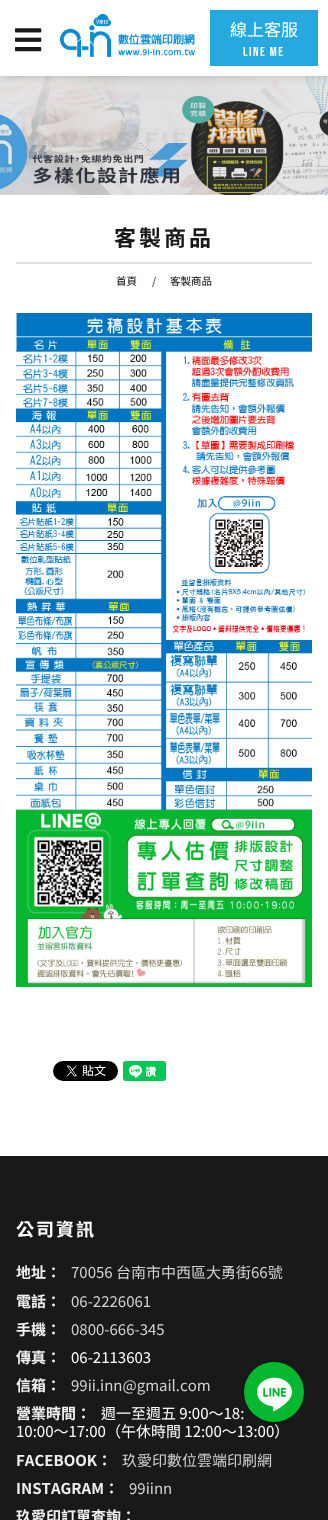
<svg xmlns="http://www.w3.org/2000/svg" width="328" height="1520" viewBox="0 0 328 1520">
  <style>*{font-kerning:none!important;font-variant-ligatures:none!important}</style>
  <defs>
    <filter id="blur1" x="-50%" y="-200%" width="200%" height="500%"><feGaussianBlur stdDeviation="5"/></filter>
  </defs>
  <rect width="100%" height="100%" fill="#ffffff"/>
  <image x="0" y="76" width="328" height="119" href="img3.png"/>
  <rect x="0" y="0" width="328" height="76" fill="#000000" fill-opacity="0.2" filter="url(#blur1)"/>
  <rect x="0" y="0" width="328" height="76" fill="#ffffff"/>
  <image x="15" y="28" width="27" height="24" href="img1.png"/>
  <image x="60" y="13" width="135" height="44" href="img2.png"/>
  <rect x="210" y="10" width="108" height="56" fill="#26a9df"/>
  <text x="230" y="36" font-family="Noto Sans TC" font-size="17" fill="#ffffff">線上客服</text>
  <text x="243" y="56" font-family="Bebas Neue" font-size="13" letter-spacing="1.5" fill="#ffffff">LINE ME</text>
  <rect x="16" y="262" width="296" height="2" fill="#dddddd"/>
  <text x="114" y="246" font-family="Noto Sans TC" font-size="22" font-weight="bold" letter-spacing="3" fill="#191919">客製商品</text>
  <text x="116" y="285" font-family="Noto Sans TC" font-size="10.5" fill="#000000">首頁</text>
  <text x="152" y="285" font-family="Noto Sans TC" font-size="10.5" fill="#191919">/</text>
  <text x="170" y="285" font-family="Noto Sans TC" font-size="10.5" fill="#000000">客製商品</text>
  <image x="16" y="313" width="296" height="497" href="img4.png"/>
  <image x="16" y="810" width="296" height="177" href="img5.png"/>
  <image x="53" y="1061" width="65" height="20" href="img6.png"/>
  <image x="123" y="1061" width="43" height="20" href="img7.png"/>
  <rect x="0" y="1156" width="328" height="364" fill="#191919"/>
  <text x="16" y="1236" font-family="Noto Sans TC" font-size="18" font-weight="bold" letter-spacing="2" fill="#ffffff">公司資訊</text>
  <text x="16" y="1278" font-family="Noto Sans TC" font-size="15" font-weight="bold" fill="#efefef">地址：</text>
  <text x="71" y="1278" font-family="Noto Sans TC" font-size="15" fill="#d2d2d2">70056 台南市中西區大勇街66號</text>
  <text x="16" y="1307" font-family="Noto Sans TC" font-size="15" font-weight="bold" fill="#efefef">電話：</text>
  <text x="71" y="1307" font-family="Noto Sans TC" font-size="15" fill="#d2d2d2">06-2226061</text>
  <text x="16" y="1335" font-family="Noto Sans TC" font-size="15" font-weight="bold" fill="#efefef">手機：</text>
  <text x="71" y="1335" font-family="Noto Sans TC" font-size="15" fill="#d2d2d2">0800-666-345</text>
  <text x="16" y="1363" font-family="Noto Sans TC" font-size="15" font-weight="bold" fill="#efefef">傳真：</text>
  <text x="71" y="1363" font-family="Noto Sans TC" font-size="15" fill="#ffffff">06-2113603</text>
  <text x="16" y="1391" font-family="Noto Sans TC" font-size="15" font-weight="bold" fill="#efefef">信箱：</text>
  <text x="71" y="1391" font-family="Noto Sans TC" font-size="15" fill="#d2d2d2">99ii.inn@gmail.com</text>
  <text x="16" y="1419" font-family="Noto Sans TC" font-size="15" font-weight="bold" fill="#efefef">營業時間：</text>
  <text x="101" y="1419" font-family="Noto Sans TC" font-size="15" fill="#ffffff">週一至週五 9:00～18:</text>
  <text x="16" y="1437" font-family="Noto Sans TC" font-size="15" fill="#ffffff">10:00～17:00（午休時間 12:00～13:00）</text>
  <text x="16" y="1466" font-family="Noto Sans TC" font-size="15" font-weight="bold" fill="#efefef">FACEBOOK：</text>
  <text x="122" y="1466" font-family="Noto Sans TC" font-size="15" fill="#d2d2d2">玖愛印數位雲端印刷網</text>
  <text x="16" y="1494" font-family="Noto Sans TC" font-size="15" font-weight="bold" fill="#efefef">INSTAGRAM：</text>
  <text x="129" y="1494" font-family="Noto Sans TC" font-size="15" fill="#d2d2d2">99iinn</text>
  <text x="16" y="1522" font-family="Noto Sans TC" font-size="15" font-weight="bold" fill="#efefef">玖愛印訂單查詢：</text>
  <circle cx="274" cy="1392" r="30" fill="#06b830"/>
  <image x="257" y="1377" width="35" height="35" href="img8.png"/>
</svg>
